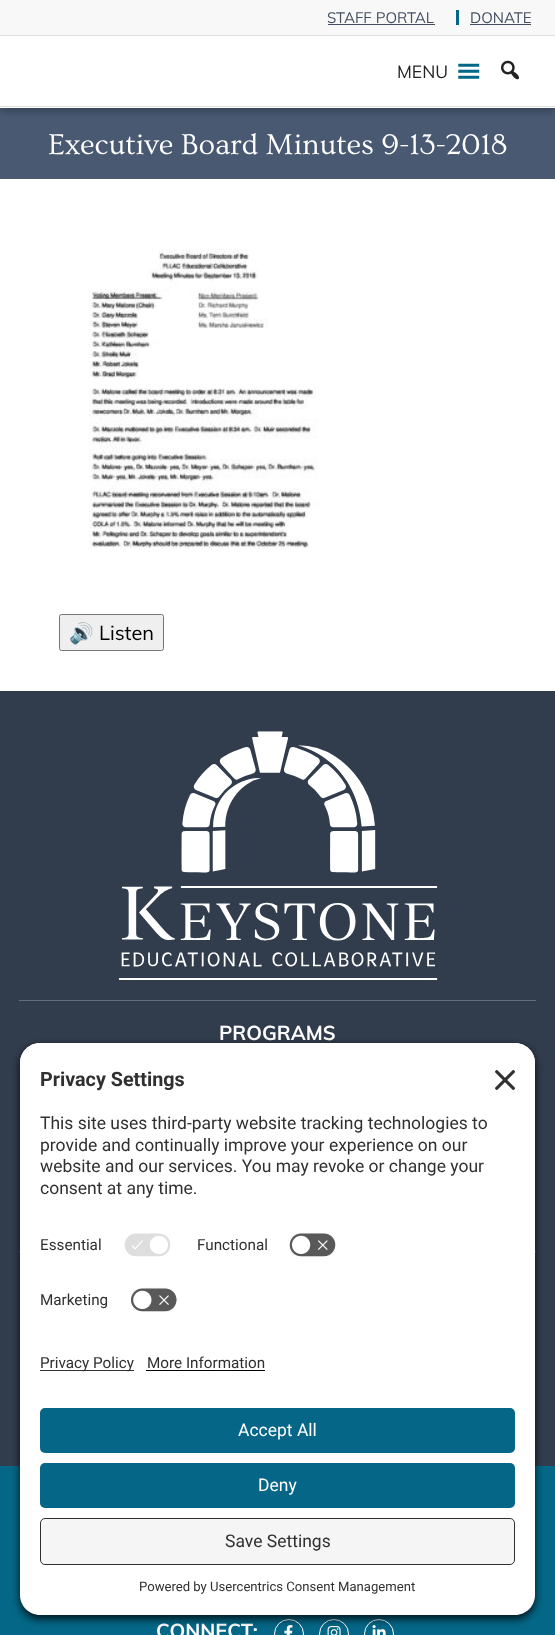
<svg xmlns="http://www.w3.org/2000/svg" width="555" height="1635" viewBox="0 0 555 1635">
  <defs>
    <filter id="blur1" x="-50%" y="-200%" width="200%" height="500%"><feGaussianBlur stdDeviation="4"/></filter>
    <filter id="blur2" x="-50%" y="-200%" width="200%" height="500%"><feGaussianBlur stdDeviation="4.5"/></filter>
  </defs>
  <rect width="100%" height="100%" fill="#ffffff"/>
  <rect x="0" y="108" width="555" height="71" fill="#495972"/>
  <rect x="0" y="4" width="555" height="107" fill="#000000" fill-opacity="0.29" filter="url(#blur1)"/>
  <rect x="0" y="0" width="555" height="35" fill="#f8f8f8"/>
  <rect x="0" y="35" width="555" height="1" fill="#dddddd"/>
  <text x="327" y="23" font-family="Muli" font-size="15" fill="#434f60">STAFF PORTAL</text>
  <rect x="328" y="24" width="107" height="1" fill="#434f60"/>
  <rect x="456" y="10" width="3" height="15" fill="#046787"/>
  <text x="470" y="23" font-family="Muli" font-size="15" fill="#434f60">DONATE</text>
  <rect x="470" y="24" width="61" height="1" fill="#434f60"/>
  <rect x="0" y="36" width="555" height="72" fill="#ffffff"/>
  <rect x="0" y="106" width="555" height="1" fill="#dddddd"/>
  <text x="397" y="78" font-family="Muli" font-size="17.5" fill="#222222">MENU</text>
  <image x="458" y="63" width="22" height="16" href="img1.png"/>
  <image x="501" y="60" width="18" height="20" href="img2.png"/>
  <text x="48" y="154" font-family="Ovo" font-size="30" fill="#ffffff">Executive Board Minutes 9-13-2018</text>
  <image x="89" y="249" width="230" height="300" href="img3.png"/>
  <rect x="59.5" y="614.5" width="104" height="36" rx="2" fill="#efefef" stroke="#767676"/>
  <text x="69" y="640" font-family="Noto Color Emoji" font-size="20" fill="#000000">🔊</text>
  <text x="99" y="640" font-family="Muli" font-size="20" fill="#000000">Listen</text>
  <rect x="0" y="691" width="555" height="775" fill="#313c4d"/>
  <image x="119" y="731" width="319" height="249" href="img4.png"/>
  <rect x="19" y="1000" width="517" height="1" fill="#656d7a"/>
  <text x="219" y="1040" font-family="Muli" font-size="20" font-weight="bold" fill="#ffffff">PROGRAMS</text>
  <rect x="19" y="1251" width="517" height="1" fill="#656d7a"/>
  <rect x="0" y="1466" width="555" height="169" fill="#046787"/>
  <text x="156" y="1638" font-family="Muli" font-size="20" font-weight="bold" fill="#ffffff">CONNECT:</text>
  <circle cx="289" cy="1634" r="14.5" fill="none" stroke="#ffffff"/>
  <image x="284" y="1625" width="9" height="10" href="img5.png"/>
  <circle cx="334" cy="1634" r="14.5" fill="none" stroke="#ffffff"/>
  <image x="327" y="1626" width="14" height="9" href="img6.png"/>
  <circle cx="379" cy="1634" r="14.5" fill="none" stroke="#ffffff"/>
  <image x="372" y="1625" width="14" height="10" href="img7.png"/>
  <rect x="20" y="1046" width="515" height="573" rx="20" fill="#000000" fill-opacity="0.8" filter="url(#blur2)"/>
  <path d="M40 1043H515C526 1043 535 1052 535 1063V1335H20V1063C20 1052 29 1043 40 1043Z" fill="#ffffff"/>
  <path d="M40 1043H515C526 1043 535 1052 535 1063V1225H20V1063C20 1052 29 1043 40 1043Z" fill="#ffffff"/>
  <text x="40" y="1086" font-family="Roboto" font-size="19.75" font-weight="bold" fill="#303030">Privacy Settings</text>
  <image x="495" y="1070" width="20" height="20" href="img8.png"/>
  <text x="40" y="1129" font-family="Roboto" font-size="17.5" fill="#303030">This site uses third-party website tracking technologies to</text>
  <text x="40" y="1151" font-family="Roboto" font-size="17.5" fill="#303030">provide and continually improve your experience on our</text>
  <text x="40" y="1172" font-family="Roboto" font-size="17.5" fill="#303030">website and our services. You may revoke or change your</text>
  <text x="40" y="1194" font-family="Roboto" font-size="17.5" fill="#303030">consent at any time.</text>
  <text x="40" y="1250" font-family="Roboto" font-size="15.25" fill="#303030">Essential</text>
  <image x="124" y="1233" width="47" height="24" href="img9.png"/>
  <text x="197" y="1250" font-family="Roboto" font-size="15.25" fill="#303030">Functional</text>
  <image x="289" y="1233" width="47" height="24" href="img10.png"/>
  <text x="40" y="1305" font-family="Roboto" font-size="15.25" fill="#303030">Marketing</text>
  <image x="130" y="1287" width="48" height="25" href="img11.png"/>
  <path d="M20 1335H535V1595C535 1606 526 1615 515 1615H40C29 1615 20 1606 20 1595Z" fill="#ffffff"/>
  <rect x="40" y="1370" width="94" height="1" fill="#303030"/>
  <text x="40" y="1368" font-family="Roboto" font-size="15.25" fill="#303030">Privacy Policy</text>
  <text x="147" y="1368" font-family="Roboto" font-size="15.25" fill="#303030">More Information</text>
  <rect x="146" y="1370" width="119" height="1" fill="#000000"/>
  <rect x="40" y="1408" width="475" height="45" rx="5" fill="#056687"/>
  <text x="238" y="1436" font-family="Roboto" font-size="17.5" fill="#ffffff">Accept All</text>
  <rect x="40" y="1463" width="475" height="45" rx="5" fill="#056687"/>
  <text x="258" y="1491" font-family="Roboto" font-size="17.5" fill="#ffffff">Deny</text>
  <rect x="40.5" y="1518.5" width="474" height="46" rx="4.5" fill="#f5f5f5" stroke="#303030"/>
  <text x="225" y="1547" font-family="Roboto" font-size="17.5" fill="#303030">Save Settings</text>
  <text x="139" y="1591" font-family="Roboto" font-size="13.1" fill="#303030">Powered by Usercentrics Consent Management</text>
</svg>
